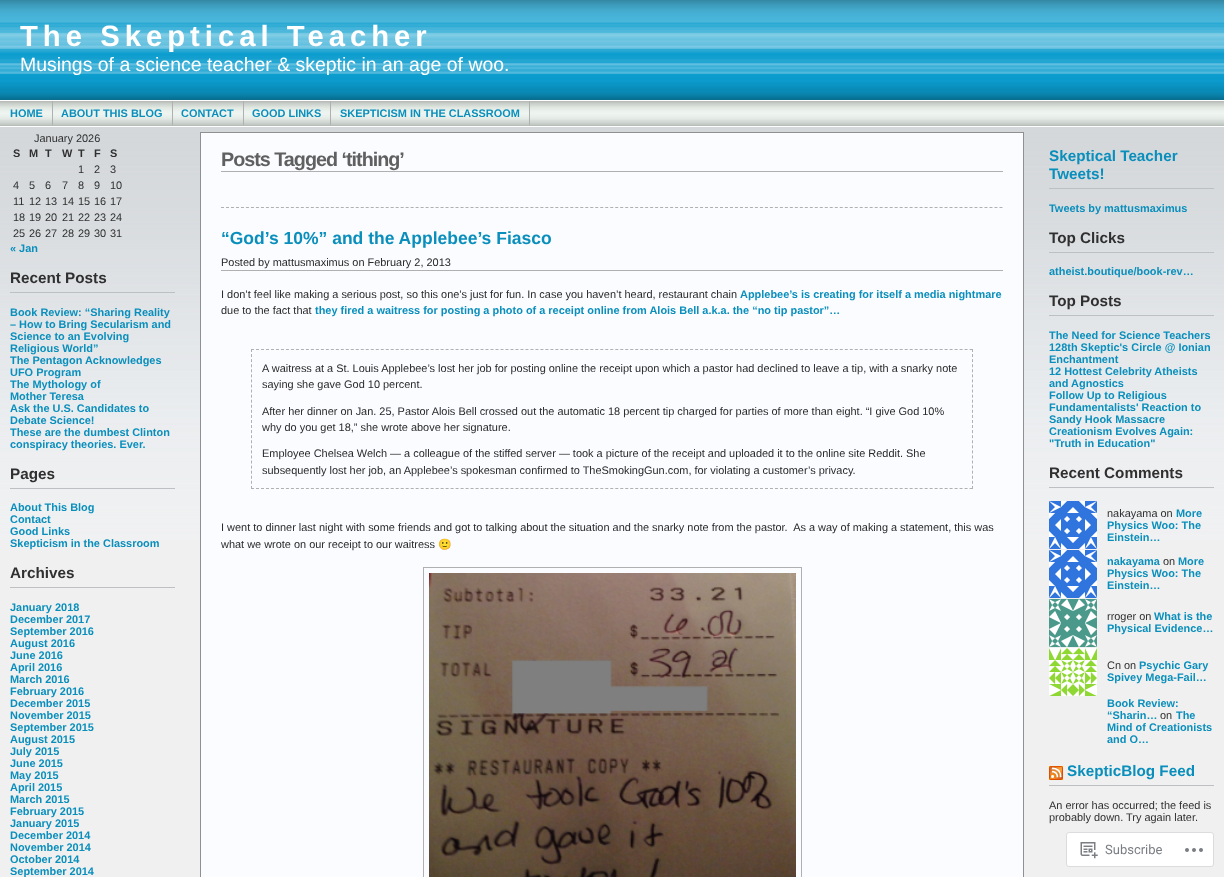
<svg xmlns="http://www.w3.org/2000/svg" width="1224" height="877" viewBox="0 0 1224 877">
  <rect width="100%" height="100%" fill="#f0f0f0"/>
  <image x="0" y="0" width="1224" height="540" href="img1.png"/>
  <text x="20" y="46" font-family="Liberation Sans" font-size="29.25" font-weight="bold" letter-spacing="5" fill="#ffffff">The Skeptical Teacher</text>
  <text x="20" y="71" font-family="Liberation Sans" font-size="19.45" fill="#ffffff">Musings of a science teacher &amp; skeptic in an age of woo.</text>
  <image x="0" y="101" width="1224" height="25" href="img2.png"/>
  <rect x="0" y="100" width="1224" height="1" fill="#ffffff"/>
  <rect x="0" y="126" width="1224" height="1" fill="#ffffff"/>
  <text x="10" y="117" font-family="Liberation Sans" font-size="10.95" font-weight="bold" fill="#0a8fbc">HOME</text>
  <rect x="52" y="101" width="1" height="24" fill="#b0b0b0"/>
  <text x="61" y="117" font-family="Liberation Sans" font-size="10.95" font-weight="bold" fill="#0a8fbc">ABOUT THIS BLOG</text>
  <rect x="172" y="101" width="1" height="24" fill="#b0b0b0"/>
  <text x="181" y="117" font-family="Liberation Sans" font-size="10.95" font-weight="bold" fill="#0a8fbc">CONTACT</text>
  <rect x="243" y="101" width="1" height="24" fill="#b0b0b0"/>
  <text x="252" y="117" font-family="Liberation Sans" font-size="10.95" font-weight="bold" fill="#0a8fbc">GOOD LINKS</text>
  <rect x="330" y="101" width="1" height="24" fill="#b0b0b0"/>
  <text x="340" y="117" font-family="Liberation Sans" font-size="10.95" font-weight="bold" fill="#0a8fbc">SKEPTICISM IN THE CLASSROOM</text>
  <rect x="529" y="101" width="1" height="24" fill="#b0b0b0"/>
  <text x="34" y="142" font-family="Liberation Sans" font-size="10.95" fill="#303030">January 2026</text>
  <text x="13" y="157" font-family="Liberation Sans" font-size="10.95" font-weight="bold" fill="#303030">S</text>
  <text x="29" y="157" font-family="Liberation Sans" font-size="10.95" font-weight="bold" fill="#303030">M</text>
  <text x="45" y="157" font-family="Liberation Sans" font-size="10.95" font-weight="bold" fill="#303030">T</text>
  <text x="62" y="157" font-family="Liberation Sans" font-size="10.95" font-weight="bold" fill="#303030">W</text>
  <text x="78" y="157" font-family="Liberation Sans" font-size="10.95" font-weight="bold" fill="#303030">T</text>
  <text x="94" y="157" font-family="Liberation Sans" font-size="10.95" font-weight="bold" fill="#303030">F</text>
  <text x="110" y="157" font-family="Liberation Sans" font-size="10.95" font-weight="bold" fill="#303030">S</text>
  <text x="78" y="173" font-family="Liberation Sans" font-size="10.95" fill="#303030">1</text>
  <text x="94" y="173" font-family="Liberation Sans" font-size="10.95" fill="#303030">2</text>
  <text x="110" y="173" font-family="Liberation Sans" font-size="10.95" fill="#303030">3</text>
  <text x="13" y="189" font-family="Liberation Sans" font-size="10.95" fill="#303030">4</text>
  <text x="29" y="189" font-family="Liberation Sans" font-size="10.95" fill="#303030">5</text>
  <text x="45" y="189" font-family="Liberation Sans" font-size="10.95" fill="#303030">6</text>
  <text x="62" y="189" font-family="Liberation Sans" font-size="10.95" fill="#303030">7</text>
  <text x="78" y="189" font-family="Liberation Sans" font-size="10.95" fill="#303030">8</text>
  <text x="94" y="189" font-family="Liberation Sans" font-size="10.95" fill="#303030">9</text>
  <text x="110" y="189" font-family="Liberation Sans" font-size="10.95" fill="#303030">10</text>
  <text x="13" y="205" font-family="Liberation Sans" font-size="10.95" fill="#303030">11</text>
  <text x="29" y="205" font-family="Liberation Sans" font-size="10.95" fill="#303030">12</text>
  <text x="45" y="205" font-family="Liberation Sans" font-size="10.95" fill="#303030">13</text>
  <text x="62" y="205" font-family="Liberation Sans" font-size="10.95" fill="#303030">14</text>
  <text x="78" y="205" font-family="Liberation Sans" font-size="10.95" fill="#303030">15</text>
  <text x="94" y="205" font-family="Liberation Sans" font-size="10.95" fill="#303030">16</text>
  <text x="110" y="205" font-family="Liberation Sans" font-size="10.95" fill="#303030">17</text>
  <text x="13" y="221" font-family="Liberation Sans" font-size="10.95" fill="#303030">18</text>
  <text x="29" y="221" font-family="Liberation Sans" font-size="10.95" fill="#303030">19</text>
  <text x="45" y="221" font-family="Liberation Sans" font-size="10.95" fill="#303030">20</text>
  <text x="62" y="221" font-family="Liberation Sans" font-size="10.95" fill="#303030">21</text>
  <text x="78" y="221" font-family="Liberation Sans" font-size="10.95" fill="#303030">22</text>
  <text x="94" y="221" font-family="Liberation Sans" font-size="10.95" fill="#303030">23</text>
  <text x="110" y="221" font-family="Liberation Sans" font-size="10.95" fill="#303030">24</text>
  <text x="13" y="237" font-family="Liberation Sans" font-size="10.95" fill="#303030">25</text>
  <text x="29" y="237" font-family="Liberation Sans" font-size="10.95" fill="#303030">26</text>
  <text x="45" y="237" font-family="Liberation Sans" font-size="10.95" fill="#303030">27</text>
  <text x="62" y="237" font-family="Liberation Sans" font-size="10.95" fill="#303030">28</text>
  <text x="78" y="237" font-family="Liberation Sans" font-size="10.95" fill="#303030">29</text>
  <text x="94" y="237" font-family="Liberation Sans" font-size="10.95" fill="#303030">30</text>
  <text x="110" y="237" font-family="Liberation Sans" font-size="10.95" fill="#303030">31</text>
  <text x="10" y="252" font-family="Liberation Sans" font-size="10.95" font-weight="bold" fill="#0a8fbc">« Jan</text>
  <rect x="10" y="292" width="165" height="1" fill="#bebfc3"/>
  <text x="10" y="283" font-family="Liberation Sans" font-size="15.25" font-weight="bold" fill="#303030">Recent Posts</text>
  <text x="10" y="316" font-family="Liberation Sans" font-size="10.95" font-weight="bold" fill="#0a8fbc">Book Review: “Sharing Reality</text>
  <text x="10" y="328" font-family="Liberation Sans" font-size="10.95" font-weight="bold" fill="#0a8fbc">– How to Bring Secularism and</text>
  <text x="10" y="340" font-family="Liberation Sans" font-size="10.95" font-weight="bold" fill="#0a8fbc">Science to an Evolving</text>
  <text x="10" y="352" font-family="Liberation Sans" font-size="10.95" font-weight="bold" fill="#0a8fbc">Religious World”</text>
  <text x="10" y="364" font-family="Liberation Sans" font-size="10.95" font-weight="bold" fill="#0a8fbc">The Pentagon Acknowledges</text>
  <text x="10" y="376" font-family="Liberation Sans" font-size="10.95" font-weight="bold" fill="#0a8fbc">UFO Program</text>
  <text x="10" y="388" font-family="Liberation Sans" font-size="10.95" font-weight="bold" fill="#0a8fbc">The Mythology of</text>
  <text x="10" y="400" font-family="Liberation Sans" font-size="10.95" font-weight="bold" fill="#0a8fbc">Mother Teresa</text>
  <text x="10" y="412" font-family="Liberation Sans" font-size="10.95" font-weight="bold" fill="#0a8fbc">Ask the U.S. Candidates to</text>
  <text x="10" y="424" font-family="Liberation Sans" font-size="10.95" font-weight="bold" fill="#0a8fbc">Debate Science!</text>
  <text x="10" y="436" font-family="Liberation Sans" font-size="10.95" font-weight="bold" fill="#0a8fbc">These are the dumbest Clinton</text>
  <text x="10" y="448" font-family="Liberation Sans" font-size="10.95" font-weight="bold" fill="#0a8fbc">conspiracy theories. Ever.</text>
  <rect x="10" y="488" width="165" height="1" fill="#bebfc3"/>
  <text x="10" y="479" font-family="Liberation Sans" font-size="15.25" font-weight="bold" fill="#303030">Pages</text>
  <text x="10" y="511" font-family="Liberation Sans" font-size="10.95" font-weight="bold" fill="#0a8fbc">About This Blog</text>
  <text x="10" y="523" font-family="Liberation Sans" font-size="10.95" font-weight="bold" fill="#0a8fbc">Contact</text>
  <text x="10" y="535" font-family="Liberation Sans" font-size="10.95" font-weight="bold" fill="#0a8fbc">Good Links</text>
  <text x="10" y="547" font-family="Liberation Sans" font-size="10.95" font-weight="bold" fill="#0a8fbc">Skepticism in the Classroom</text>
  <rect x="10" y="587" width="165" height="1" fill="#bebfc3"/>
  <text x="10" y="578" font-family="Liberation Sans" font-size="15.25" font-weight="bold" fill="#303030">Archives</text>
  <text x="10" y="611" font-family="Liberation Sans" font-size="10.95" font-weight="bold" fill="#0a8fbc">January 2018</text>
  <text x="10" y="623" font-family="Liberation Sans" font-size="10.95" font-weight="bold" fill="#0a8fbc">December 2017</text>
  <text x="10" y="635" font-family="Liberation Sans" font-size="10.95" font-weight="bold" fill="#0a8fbc">September 2016</text>
  <text x="10" y="647" font-family="Liberation Sans" font-size="10.95" font-weight="bold" fill="#0a8fbc">August 2016</text>
  <text x="10" y="659" font-family="Liberation Sans" font-size="10.95" font-weight="bold" fill="#0a8fbc">June 2016</text>
  <text x="10" y="671" font-family="Liberation Sans" font-size="10.95" font-weight="bold" fill="#0a8fbc">April 2016</text>
  <text x="10" y="683" font-family="Liberation Sans" font-size="10.95" font-weight="bold" fill="#0a8fbc">March 2016</text>
  <text x="10" y="695" font-family="Liberation Sans" font-size="10.95" font-weight="bold" fill="#0a8fbc">February 2016</text>
  <text x="10" y="707" font-family="Liberation Sans" font-size="10.95" font-weight="bold" fill="#0a8fbc">December 2015</text>
  <text x="10" y="719" font-family="Liberation Sans" font-size="10.95" font-weight="bold" fill="#0a8fbc">November 2015</text>
  <text x="10" y="731" font-family="Liberation Sans" font-size="10.95" font-weight="bold" fill="#0a8fbc">September 2015</text>
  <text x="10" y="743" font-family="Liberation Sans" font-size="10.95" font-weight="bold" fill="#0a8fbc">August 2015</text>
  <text x="10" y="755" font-family="Liberation Sans" font-size="10.95" font-weight="bold" fill="#0a8fbc">July 2015</text>
  <text x="10" y="767" font-family="Liberation Sans" font-size="10.95" font-weight="bold" fill="#0a8fbc">June 2015</text>
  <text x="10" y="779" font-family="Liberation Sans" font-size="10.95" font-weight="bold" fill="#0a8fbc">May 2015</text>
  <text x="10" y="791" font-family="Liberation Sans" font-size="10.95" font-weight="bold" fill="#0a8fbc">April 2015</text>
  <text x="10" y="803" font-family="Liberation Sans" font-size="10.95" font-weight="bold" fill="#0a8fbc">March 2015</text>
  <text x="10" y="815" font-family="Liberation Sans" font-size="10.95" font-weight="bold" fill="#0a8fbc">February 2015</text>
  <text x="10" y="827" font-family="Liberation Sans" font-size="10.95" font-weight="bold" fill="#0a8fbc">January 2015</text>
  <text x="10" y="839" font-family="Liberation Sans" font-size="10.95" font-weight="bold" fill="#0a8fbc">December 2014</text>
  <text x="10" y="851" font-family="Liberation Sans" font-size="10.95" font-weight="bold" fill="#0a8fbc">November 2014</text>
  <text x="10" y="863" font-family="Liberation Sans" font-size="10.95" font-weight="bold" fill="#0a8fbc">October 2014</text>
  <text x="10" y="875" font-family="Liberation Sans" font-size="10.95" font-weight="bold" fill="#0a8fbc">September 2014</text>
  <rect x="200.5" y="132.5" width="823" height="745" fill="#fafcff" stroke="#909090"/>
  <rect x="221" y="171" width="782" height="1" fill="#b0b0b0"/>
  <text x="221" y="166" font-family="Liberation Sans" font-size="19.75" font-weight="bold" letter-spacing="-1" fill="#606060">Posts Tagged ‘tithing’</text>
  <path d="M221 207.5H1003" fill="none" stroke="#b0b0b0" stroke-dasharray="3 1.99"/>
  <text x="221" y="244" font-family="Liberation Sans" font-size="17.5" font-weight="bold" fill="#0a8fbc">“God’s 10%” and the Applebee’s Fiasco</text>
  <rect x="221" y="270" width="782" height="1" fill="#b0b0b0"/>
  <text x="221" y="266" font-family="Liberation Sans" font-size="10.95" fill="#2a2a2a">Posted by mattusmaximus on February 2, 2013</text>
  <text x="221" y="298" font-family="Liberation Sans" font-size="10.95" fill="#2a2a2a">I don’t feel like making a serious post, so this one’s just for fun. In case you haven’t heard, restaurant chain</text>
  <text x="740" y="298" font-family="Liberation Sans" font-size="10.95" font-weight="bold" fill="#0a8fbc">Applebee’s is creating for itself a media nightmare</text>
  <text x="221" y="314" font-family="Liberation Sans" font-size="10.95" fill="#2a2a2a">due to the fact that</text>
  <text x="315" y="314" font-family="Liberation Sans" font-size="10.95" font-weight="bold" fill="#0a8fbc">they fired a waitress for posting a photo of a receipt online from Alois Bell a.k.a. the “no tip pastor”…</text>
  <path d="M251 349.5H973" fill="none" stroke="#b0b0b0" stroke-dasharray="3 1.99"/>
  <path d="M972.5 349V489" fill="none" stroke="#b0b0b0" stroke-dasharray="3 2.07"/>
  <path d="M251 488.5H973" fill="none" stroke="#b0b0b0" stroke-dasharray="3 1.99"/>
  <path d="M251.5 349V489" fill="none" stroke="#b0b0b0" stroke-dasharray="3 2.07"/>
  <text x="262" y="372" font-family="Liberation Sans" font-size="10.95" fill="#2a2a2a">A waitress at a St. Louis Applebee’s lost her job for posting online the receipt upon which a pastor had declined to leave a tip, with a snarky note</text>
  <text x="262" y="388" font-family="Liberation Sans" font-size="10.95" fill="#2a2a2a">saying she gave God 10 percent.</text>
  <text x="262" y="415" font-family="Liberation Sans" font-size="10.95" fill="#2a2a2a">After her dinner on Jan. 25, Pastor Alois Bell crossed out the automatic 18 percent tip charged for parties of more than eight. “I give God 10%</text>
  <text x="262" y="431" font-family="Liberation Sans" font-size="10.95" fill="#2a2a2a">why do you get 18,” she wrote above her signature.</text>
  <text x="262" y="457" font-family="Liberation Sans" font-size="10.95" fill="#2a2a2a">Employee Chelsea Welch — a colleague of the stiffed server — took a picture of the receipt and uploaded it to the online site Reddit. She</text>
  <text x="262" y="474" font-family="Liberation Sans" font-size="10.95" fill="#2a2a2a">subsequently lost her job, an Applebee’s spokesman confirmed to TheSmokingGun.com, for violating a customer’s privacy.</text>
  <text x="221" y="531" font-family="Liberation Sans" font-size="10.95" fill="#2a2a2a" xml:space="preserve">I went to dinner last night with some friends and got to talking about the situation and the snarky note from the pastor.  As a way of making a statement, this was</text>
  <text x="221" y="548" font-family="Liberation Sans" font-size="10.95" fill="#2a2a2a">what we wrote on our receipt to our waitress</text>
  <text x="438" y="548" font-family="Noto Color Emoji" font-size="10.95" fill="#2a2a2a">🙂</text>
  <rect x="423.5" y="567.5" width="378" height="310" fill="none" stroke="#b0b0b0"/>
  <image x="429" y="573" width="367" height="304" href="img3.png"/>
  <rect x="1049" y="188" width="165" height="1" fill="#bebfc3"/>
  <text x="1049" y="161" font-family="Liberation Sans" font-size="15.25" font-weight="bold" fill="#0a8fbc">Skeptical Teacher</text>
  <text x="1049" y="179" font-family="Liberation Sans" font-size="15.25" font-weight="bold" fill="#0a8fbc">Tweets!</text>
  <text x="1049" y="212" font-family="Liberation Sans" font-size="10.95" font-weight="bold" fill="#0a8fbc">Tweets by mattusmaximus</text>
  <rect x="1049" y="252" width="165" height="1" fill="#bebfc3"/>
  <text x="1049" y="243" font-family="Liberation Sans" font-size="15.25" font-weight="bold" fill="#303030">Top Clicks</text>
  <text x="1049" y="275" font-family="Liberation Sans" font-size="10.95" font-weight="bold" fill="#0a8fbc">atheist.boutique/book-rev…</text>
  <rect x="1049" y="315" width="165" height="1" fill="#bebfc3"/>
  <text x="1049" y="306" font-family="Liberation Sans" font-size="15.25" font-weight="bold" fill="#303030">Top Posts</text>
  <text x="1049" y="339" font-family="Liberation Sans" font-size="10.95" font-weight="bold" fill="#0a8fbc">The Need for Science Teachers</text>
  <text x="1049" y="351" font-family="Liberation Sans" font-size="10.95" font-weight="bold" fill="#0a8fbc">128th Skeptic's Circle @ Ionian</text>
  <text x="1049" y="363" font-family="Liberation Sans" font-size="10.95" font-weight="bold" fill="#0a8fbc">Enchantment</text>
  <text x="1049" y="375" font-family="Liberation Sans" font-size="10.95" font-weight="bold" fill="#0a8fbc">12 Hottest Celebrity Atheists</text>
  <text x="1049" y="387" font-family="Liberation Sans" font-size="10.95" font-weight="bold" fill="#0a8fbc">and Agnostics</text>
  <text x="1049" y="399" font-family="Liberation Sans" font-size="10.95" font-weight="bold" fill="#0a8fbc">Follow Up to Religious</text>
  <text x="1049" y="411" font-family="Liberation Sans" font-size="10.95" font-weight="bold" fill="#0a8fbc">Fundamentalists' Reaction to</text>
  <text x="1049" y="423" font-family="Liberation Sans" font-size="10.95" font-weight="bold" fill="#0a8fbc">Sandy Hook Massacre</text>
  <text x="1049" y="435" font-family="Liberation Sans" font-size="10.95" font-weight="bold" fill="#0a8fbc">Creationism Evolves Again:</text>
  <text x="1049" y="447" font-family="Liberation Sans" font-size="10.95" font-weight="bold" fill="#0a8fbc">"Truth in Education"</text>
  <rect x="1049" y="487" width="165" height="1" fill="#bebfc3"/>
  <text x="1049" y="478" font-family="Liberation Sans" font-size="15.25" font-weight="bold" fill="#303030">Recent Comments</text>
  <image x="1049" y="501" width="48" height="48" href="img4.png"/>
  <text x="1107" y="517" font-family="Liberation Sans" font-size="10.95" fill="#303030">nakayama on</text>
  <text x="1176" y="517" font-family="Liberation Sans" font-size="10.95" font-weight="bold" fill="#0a8fbc">More</text>
  <text x="1107" y="529" font-family="Liberation Sans" font-size="10.95" font-weight="bold" fill="#0a8fbc">Physics Woo: The</text>
  <text x="1107" y="541" font-family="Liberation Sans" font-size="10.95" font-weight="bold" fill="#0a8fbc">Einstein…</text>
  <image x="1049" y="550" width="48" height="48" href="img4.png"/>
  <text x="1107" y="565" font-family="Liberation Sans" font-size="10.95" font-weight="bold" fill="#0a8fbc">nakayama</text>
  <text x="1163" y="565" font-family="Liberation Sans" font-size="10.95" fill="#303030">on</text>
  <text x="1178" y="565" font-family="Liberation Sans" font-size="10.95" font-weight="bold" fill="#0a8fbc">More</text>
  <text x="1107" y="577" font-family="Liberation Sans" font-size="10.95" font-weight="bold" fill="#0a8fbc">Physics Woo: The</text>
  <text x="1107" y="589" font-family="Liberation Sans" font-size="10.95" font-weight="bold" fill="#0a8fbc">Einstein…</text>
  <image x="1049" y="599" width="48" height="48" href="img5.png"/>
  <text x="1107" y="620" font-family="Liberation Sans" font-size="10.95" fill="#303030">rroger on</text>
  <text x="1154" y="620" font-family="Liberation Sans" font-size="10.95" font-weight="bold" fill="#0a8fbc">What is the</text>
  <text x="1107" y="632" font-family="Liberation Sans" font-size="10.95" font-weight="bold" fill="#0a8fbc">Physical Evidence…</text>
  <image x="1049" y="648" width="48" height="48" href="img6.png"/>
  <text x="1107" y="669" font-family="Liberation Sans" font-size="10.95" fill="#303030">Cn on</text>
  <text x="1139" y="669" font-family="Liberation Sans" font-size="10.95" font-weight="bold" fill="#0a8fbc">Psychic Gary</text>
  <text x="1107" y="681" font-family="Liberation Sans" font-size="10.95" font-weight="bold" fill="#0a8fbc">Spivey Mega-Fail…</text>
  <text x="1107" y="707" font-family="Liberation Sans" font-size="10.95" font-weight="bold" fill="#0a8fbc">Book Review:</text>
  <text x="1107" y="719" font-family="Liberation Sans" font-size="10.95" font-weight="bold" fill="#0a8fbc">“Sharin…</text>
  <text x="1160" y="719" font-family="Liberation Sans" font-size="10.95" fill="#303030">on</text>
  <text x="1176" y="719" font-family="Liberation Sans" font-size="10.95" font-weight="bold" fill="#0a8fbc">The</text>
  <text x="1107" y="731" font-family="Liberation Sans" font-size="10.95" font-weight="bold" fill="#0a8fbc">Mind of Creationists</text>
  <text x="1107" y="743" font-family="Liberation Sans" font-size="10.95" font-weight="bold" fill="#0a8fbc">and O…</text>
  <rect x="1049" y="785" width="165" height="1" fill="#bebfc3"/>
  <rect x="1049" y="766" width="14" height="14" fill="#ffa500"/>
  <text x="1067" y="776" font-family="Liberation Sans" font-size="15.25" font-weight="bold" fill="#0a8fbc">SkepticBlog Feed</text>
  <image x="1049" y="766" width="14" height="14" href="img7.png"/>
  <text x="1049" y="809" font-family="Liberation Sans" font-size="10.95" fill="#303030">An error has occurred; the feed is</text>
  <text x="1049" y="821" font-family="Liberation Sans" font-size="10.95" fill="#303030">probably down. Try again later.</text>
  <rect x="1066.5" y="832.5" width="147" height="34" rx="2.5" fill="#ffffff" stroke="#dcdcde"/>
  <image x="1080" y="842" width="18" height="17" href="img8.png"/>
  <text x="1105" y="854" font-family="Roboto" font-size="13" fill="#7a7e84">Subscribe</text>
  <image x="1185" y="848" width="18" height="4" href="img9.png"/>
</svg>
